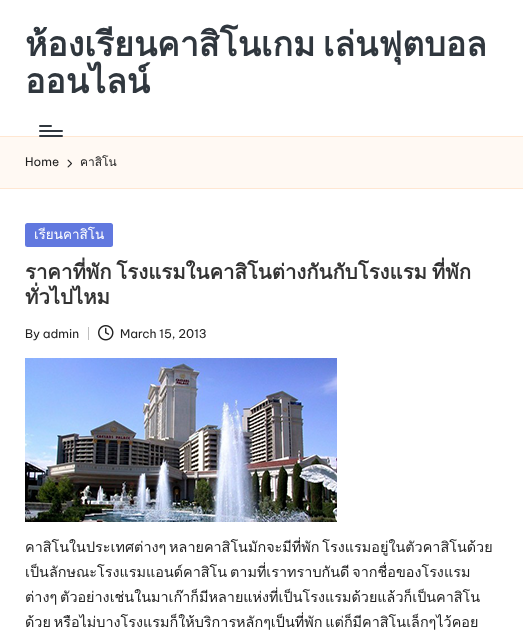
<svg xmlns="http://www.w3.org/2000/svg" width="523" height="640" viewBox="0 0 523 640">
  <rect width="100%" height="100%" fill="#ffffff"/>
  <text x="25" y="56" word-spacing="-4" font-family="Loma" font-size="33.9" font-weight="bold" fill="#30373e">ห้องเรียนคาสิโนเกม เล่นฟุตบอล</text>
  <text x="25" y="93" font-family="Loma" font-size="33.9" font-weight="bold" fill="#30373e">ออนไลน์</text>
  <rect x="39" y="130" width="24" height="2" rx="1" fill="#30373e"/>
  <rect x="39" y="125" width="13" height="2" rx="1" fill="#30373e"/>
  <rect x="0" y="136" width="523" height="1" fill="#ffe7d2"/>
  <rect x="39" y="135" width="24" height="2" rx="1" fill="#30373e"/>
  <rect x="0" y="137" width="523" height="51" fill="#fff9f3"/>
  <rect x="0" y="188" width="523" height="1" fill="#ffe7d2"/>
  <text x="25" y="166" font-family="Be Vietnam Pro" font-size="12" fill="#212121">Home</text>
  <image x="67" y="159" width="5" height="9" href="img1.png"/>
  <text x="80" y="166" font-family="Loma" font-size="12" fill="#212121">คาสิโน</text>
  <rect x="25" y="223" width="88" height="24" rx="2.5" fill="#6178df"/>
  <text x="34" y="239" font-family="Loma" font-size="13.5" fill="#ffffff">เรียนคาสิโน</text>
  <text x="25" y="279" word-spacing="-2" font-family="Loma" font-size="20.35" font-weight="bold" fill="#333333">ราคาที่พัก โรงแรมในคาสิโนต่างกันกับโรงแรม ที่พัก</text>
  <text x="25" y="304" font-family="Loma" font-size="20.35" font-weight="bold" fill="#333333">ทั่วไปไหม</text>
  <text x="25" y="338" font-family="Be Vietnam Pro" font-size="12" fill="#212121">By admin</text>
  <rect x="88" y="327" width="1" height="13" fill="#bfbfbf"/>
  <image x="98" y="325" width="16" height="16" href="img2.png"/>
  <text x="120" y="338" font-family="Be Vietnam Pro" font-size="12" fill="#212121">March 15, 2013</text>
  <image x="25" y="358" width="312" height="164" href="img3.png"/>
  <text x="25" y="552" word-spacing="-2" font-family="Loma" font-size="14.4" fill="#212121">คาสิโนในประเทศต่างๆ หลายคาสิโนมักจะมีที่พัก โรงแรมอยู่ในตัวคาสิโนด้วย</text>
  <text x="25" y="577" word-spacing="-2" font-family="Loma" font-size="14.4" fill="#212121">เป็นลักษณะโรงแรมแอนด์คาสิโน ตามที่เราทราบกันดี จากชื่อของโรงแรม</text>
  <text x="25" y="602" word-spacing="-2" font-family="Loma" font-size="14.4" fill="#212121">ต่างๆ ตัวอย่างเช่นในมาเก๊าก็มีหลายแห่งที่เป็นโรงแรมด้วยแล้วก็เป็นคาสิโน</text>
  <text x="25" y="627" word-spacing="-2" font-family="Loma" font-size="14.4" fill="#212121">ด้วย หรือไม่บางโรงแรมก็ให้บริการหลักๆเป็นที่พัก แต่ก็มีคาสิโนเล็กๆไว้คอย</text>
</svg>
